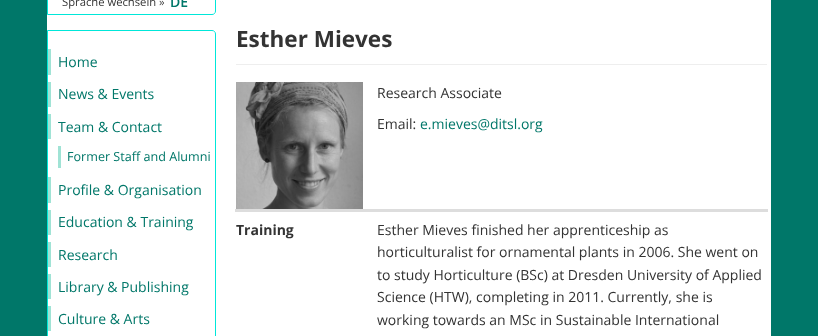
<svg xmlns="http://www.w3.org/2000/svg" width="818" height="336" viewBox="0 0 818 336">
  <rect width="100%" height="100%" fill="#007769"/>
  <rect x="47" y="0" width="724" height="336" fill="#ffffff"/>
  <path d="M47.5-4.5H215.5V11C215.5 13 214 14.5 212 14.5H47.5Z" fill="none" stroke="#00e7d9"/>
  <text x="62" y="6" font-family="Open Sans" font-size="11.25" fill="#333333">Sprache wechseln »</text>
  <text x="170" y="7" font-family="Open Sans" font-size="14" font-weight="600" fill="#007769">DE</text>
  <path d="M47.5 30.5H212C214 30.5 215.5 32 215.5 34V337C215.5 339 214 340.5 212 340.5H47.5Z" fill="none" stroke="#00e7d9"/>
  <rect x="48" y="49" width="3" height="26" fill="#a0e3d5"/>
  <text x="58" y="67" font-family="Open Sans" font-size="14" fill="#007769">Home</text>
  <rect x="48" y="82" width="3" height="25" fill="#a0e3d5"/>
  <text x="58" y="99" font-family="Open Sans" font-size="14" fill="#007769">News &amp; Events</text>
  <rect x="48" y="114" width="3" height="25" fill="#a0e3d5"/>
  <text x="58" y="132" font-family="Open Sans" font-size="14" fill="#007769">Team &amp; Contact</text>
  <rect x="58" y="146" width="3" height="22" fill="#a0e3d5"/>
  <text x="67" y="161" font-family="Open Sans" font-size="12.6" fill="#007769">Former Staff and Alumni</text>
  <rect x="48" y="177" width="3" height="26" fill="#a0e3d5"/>
  <text x="58" y="195" font-family="Open Sans" font-size="14" fill="#007769">Profile &amp; Organisation</text>
  <rect x="48" y="210" width="3" height="25" fill="#a0e3d5"/>
  <text x="58" y="227" font-family="Open Sans" font-size="14" fill="#007769">Education &amp; Training</text>
  <rect x="48" y="242" width="3" height="25" fill="#a0e3d5"/>
  <text x="58" y="260" font-family="Open Sans" font-size="14" fill="#007769">Research</text>
  <rect x="48" y="274" width="3" height="25" fill="#a0e3d5"/>
  <text x="58" y="292" font-family="Open Sans" font-size="14" fill="#007769">Library &amp; Publishing</text>
  <rect x="48" y="306" width="3" height="25" fill="#a0e3d5"/>
  <text x="58" y="324" font-family="Open Sans" font-size="14" fill="#007769">Culture &amp; Arts</text>
  <rect x="236" y="64" width="531" height="1" fill="#eeeeee"/>
  <text x="236" y="47" font-family="Open Sans" font-size="22.5" font-weight="bold" fill="#333333">Esther Mieves</text>
  <image x="236" y="82" width="127" height="127" href="img1.png"/>
  <rect x="235" y="209" width="533" height="3" fill="#dddddd"/>
  <text x="377" y="98" font-family="Open Sans" font-size="14" fill="#333333">Research Associate</text>
  <text x="377" y="129" font-family="Open Sans" font-size="14" fill="#333333">Email:</text>
  <text x="420" y="129" font-family="Open Sans" font-size="14" fill="#007769">e.mieves@ditsl.org</text>
  <text x="236" y="235" font-family="Open Sans" font-size="14" font-weight="bold" fill="#333333">Training</text>
  <text x="377" y="235" font-family="Open Sans" font-size="14" fill="#333333">Esther Mieves finished her apprenticeship as</text>
  <text x="377" y="257" font-family="Open Sans" font-size="14" fill="#333333">horticulturalist for ornamental plants in 2006. She went on</text>
  <text x="377" y="280" font-family="Open Sans" font-size="14" fill="#333333">to study Horticulture (BSc) at Dresden University of Applied</text>
  <text x="377" y="302" font-family="Open Sans" font-size="14" fill="#333333">Science (HTW), completing in 2011. Currently, she is</text>
  <text x="377" y="325" font-family="Open Sans" font-size="14" fill="#333333">working towards an MSc in Sustainable International</text>
</svg>
